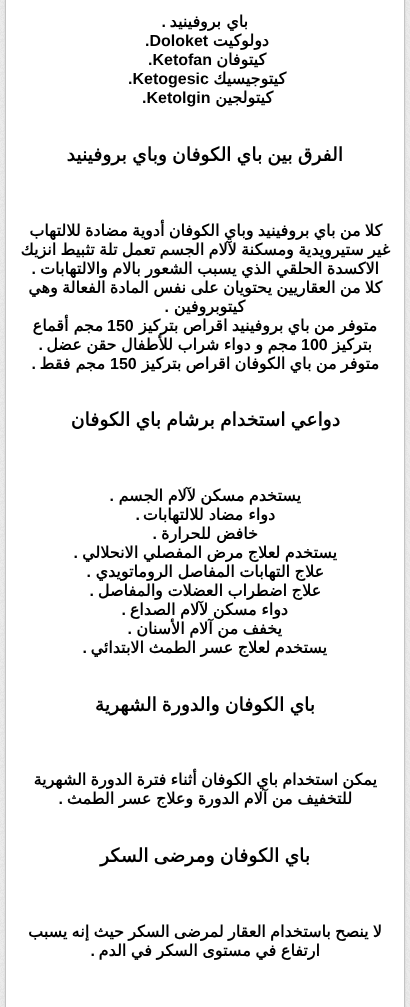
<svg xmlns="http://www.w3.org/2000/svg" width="410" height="1007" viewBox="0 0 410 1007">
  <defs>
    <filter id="blur1" x="-50%" y="-200%" width="200%" height="500%"><feGaussianBlur stdDeviation="1"/></filter>
  </defs>
  <rect width="100%" height="100%" fill="#ffffff"/>
  <image x="0" y="0" width="410" height="1007" href="img1.png"/>
  <rect x="5" y="-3" width="400" height="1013" fill="#d0d0d0" filter="url(#blur1)"/>
  <rect x="5.5" y="-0.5" width="399" height="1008" fill="#ffffff" stroke="#c4c4c4"/>
  <text x="248" y="27" font-family="DejaVu Sans" font-size="16" font-weight="bold" direction="rtl" fill="#000000">باي بروفينيد</text>
  <text x="166" y="27" font-family="Liberation Sans" font-size="16" font-weight="bold" direction="rtl" fill="#000000">.</text>
  <text x="269" y="46" font-family="DejaVu Sans" font-size="16" font-weight="bold" direction="rtl" fill="#000000">دولوكيت</text>
  <text x="145" y="46" font-family="Liberation Sans" font-size="16" font-weight="bold" fill="#000000">.Doloket</text>
  <text x="266" y="65" font-family="DejaVu Sans" font-size="16" font-weight="bold" direction="rtl" fill="#000000">كيتوفان</text>
  <text x="148" y="65" font-family="Liberation Sans" font-size="16" font-weight="bold" fill="#000000">.Ketofan</text>
  <text x="286" y="84" font-family="DejaVu Sans" font-size="16" font-weight="bold" direction="rtl" fill="#000000">كيتوجيسيك</text>
  <text x="128" y="84" font-family="Liberation Sans" font-size="16" font-weight="bold" fill="#000000">.Ketogesic</text>
  <text x="273" y="103" font-family="DejaVu Sans" font-size="16" font-weight="bold" direction="rtl" fill="#000000">كيتولجين</text>
  <text x="142" y="103" font-family="Liberation Sans" font-size="16" font-weight="bold" fill="#000000">.Ketolgin</text>
  <text x="343" y="161" word-spacing="-0.75" font-family="DejaVu Sans" font-size="18.75" font-weight="bold" direction="rtl" fill="#000000">الفرق بين باي الكوفان وباي بروفينيد</text>
  <text x="382" y="236" word-spacing="-0.75" font-family="DejaVu Sans" font-size="16" font-weight="bold" direction="rtl" fill="#000000">كلا من باي بروفينيد وباي الكوفان أدوية مضادة للالتهاب</text>
  <text x="390" y="255" word-spacing="-0.75" font-family="DejaVu Sans" font-size="16" font-weight="bold" direction="rtl" fill="#000000">غير ستيرويدية ومسكنة لآلام الجسم تعمل تلة تثبيط انزيك</text>
  <text x="379" y="274" word-spacing="-0.5" font-family="DejaVu Sans" font-size="16" font-weight="bold" direction="rtl" fill="#000000">الاكسدة الحلقي الذي يسبب الشعور بالام والالتهابات</text>
  <text x="36" y="274" font-family="Liberation Sans" font-size="16" font-weight="bold" direction="rtl" fill="#000000">.</text>
  <text x="382" y="293" word-spacing="-0.75" font-family="DejaVu Sans" font-size="16" font-weight="bold" direction="rtl" fill="#000000">كلا من العقاريين يحتويان على نفس المادة الفعالة وهي</text>
  <text x="245" y="312" font-family="DejaVu Sans" font-size="16" font-weight="bold" direction="rtl" fill="#000000">كيتوبروفين</text>
  <text x="169" y="312" font-family="Liberation Sans" font-size="16" font-weight="bold" direction="rtl" fill="#000000">.</text>
  <text x="377" y="331" word-spacing="-0.75" font-family="DejaVu Sans" font-size="16" font-weight="bold" direction="rtl" fill="#000000">متوفر من باي بروفينيد اقراص بتركيز</text>
  <text x="107" y="331" font-family="Liberation Sans" font-size="16" font-weight="bold" fill="#000000">150</text>
  <text x="103" y="331" font-family="DejaVu Sans" font-size="16" font-weight="bold" direction="rtl" fill="#000000">مجم أقماع</text>
  <text x="372" y="350" font-family="DejaVu Sans" font-size="16" font-weight="bold" direction="rtl" fill="#000000">بتركيز</text>
  <text x="301" y="350" font-family="Liberation Sans" font-size="16" font-weight="bold" fill="#000000">100</text>
  <text x="297" y="350" word-spacing="-0.5" font-family="DejaVu Sans" font-size="16" font-weight="bold" direction="rtl" fill="#000000">مجم و دواء شراب للأطفال حقن عضل</text>
  <text x="43" y="350" font-family="Liberation Sans" font-size="16" font-weight="bold" direction="rtl" fill="#000000">.</text>
  <text x="379" y="369" word-spacing="-0.75" font-family="DejaVu Sans" font-size="16" font-weight="bold" direction="rtl" fill="#000000">متوفر من باي الكوفان اقراص بتركيز</text>
  <text x="110" y="369" font-family="Liberation Sans" font-size="16" font-weight="bold" fill="#000000">150</text>
  <text x="105" y="369" font-family="DejaVu Sans" font-size="16" font-weight="bold" direction="rtl" fill="#000000">مجم فقط</text>
  <text x="36" y="369" font-family="Liberation Sans" font-size="16" font-weight="bold" direction="rtl" fill="#000000">.</text>
  <text x="340" y="426" word-spacing="-0.75" font-family="DejaVu Sans" font-size="18.75" font-weight="bold" direction="rtl" fill="#000000">دواعي استخدام برشام باي الكوفان</text>
  <text x="301" y="501" word-spacing="-0.5" font-family="DejaVu Sans" font-size="16" font-weight="bold" direction="rtl" fill="#000000">يستخدم مسكن لآلام الجسم</text>
  <text x="114" y="501" font-family="Liberation Sans" font-size="16" font-weight="bold" direction="rtl" fill="#000000">.</text>
  <text x="275" y="520" font-family="DejaVu Sans" font-size="16" font-weight="bold" direction="rtl" fill="#000000">دواء مضاد للالتهابات</text>
  <text x="140" y="520" font-family="Liberation Sans" font-size="16" font-weight="bold" direction="rtl" fill="#000000">.</text>
  <text x="258" y="539" font-family="DejaVu Sans" font-size="16" font-weight="bold" direction="rtl" fill="#000000">خافض للحرارة</text>
  <text x="157" y="539" font-family="Liberation Sans" font-size="16" font-weight="bold" direction="rtl" fill="#000000">.</text>
  <text x="337" y="558" word-spacing="-0.5" font-family="DejaVu Sans" font-size="16" font-weight="bold" direction="rtl" fill="#000000">يستخدم لعلاج مرض المفصلي الانحلالي</text>
  <text x="78" y="558" font-family="Liberation Sans" font-size="16" font-weight="bold" direction="rtl" fill="#000000">.</text>
  <text x="324" y="577" word-spacing="-0.5" font-family="DejaVu Sans" font-size="16" font-weight="bold" direction="rtl" fill="#000000">علاج التهابات المفاصل الروماتويدي</text>
  <text x="91" y="577" font-family="Liberation Sans" font-size="16" font-weight="bold" direction="rtl" fill="#000000">.</text>
  <text x="321" y="596" word-spacing="-0.5" font-family="DejaVu Sans" font-size="16" font-weight="bold" direction="rtl" fill="#000000">علاج اضطراب العضلات والمفاصل</text>
  <text x="94" y="596" font-family="Liberation Sans" font-size="16" font-weight="bold" direction="rtl" fill="#000000">.</text>
  <text x="288" y="615" word-spacing="-0.5" font-family="DejaVu Sans" font-size="16" font-weight="bold" direction="rtl" fill="#000000">دواء مسكن لآلام الصداع</text>
  <text x="126" y="615" font-family="Liberation Sans" font-size="16" font-weight="bold" direction="rtl" fill="#000000">.</text>
  <text x="282" y="634" word-spacing="-0.5" font-family="DejaVu Sans" font-size="16" font-weight="bold" direction="rtl" fill="#000000">يخفف من آلام الأسنان</text>
  <text x="132" y="634" font-family="Liberation Sans" font-size="16" font-weight="bold" direction="rtl" fill="#000000">.</text>
  <text x="327" y="653" word-spacing="-0.5" font-family="DejaVu Sans" font-size="16" font-weight="bold" direction="rtl" fill="#000000">يستخدم لعلاج عسر الطمث الابتدائي</text>
  <text x="87" y="653" font-family="Liberation Sans" font-size="16" font-weight="bold" direction="rtl" fill="#000000">.</text>
  <text x="315" y="711" word-spacing="-0.75" font-family="DejaVu Sans" font-size="18.75" font-weight="bold" direction="rtl" fill="#000000">باي الكوفان والدورة الشهرية</text>
  <text x="377" y="785" word-spacing="-0.75" font-family="DejaVu Sans" font-size="16" font-weight="bold" direction="rtl" fill="#000000">يمكن استخدام باي الكوفان أثناء فترة الدورة الشهرية</text>
  <text x="352" y="804" word-spacing="-0.5" font-family="DejaVu Sans" font-size="16" font-weight="bold" direction="rtl" fill="#000000">للتخفيف من آلام الدورة وعلاج عسر الطمث</text>
  <text x="63" y="804" font-family="Liberation Sans" font-size="16" font-weight="bold" direction="rtl" fill="#000000">.</text>
  <text x="310" y="862" word-spacing="-0.75" font-family="DejaVu Sans" font-size="18.75" font-weight="bold" direction="rtl" fill="#000000">باي الكوفان ومرضى السكر</text>
  <text x="382" y="937" word-spacing="-0.75" font-family="DejaVu Sans" font-size="16" font-weight="bold" direction="rtl" fill="#000000">لا ينصح باستخدام العقار لمرضى السكر حيث إنه يسبب</text>
  <text x="320" y="956" word-spacing="-0.5" font-family="DejaVu Sans" font-size="16" font-weight="bold" direction="rtl" fill="#000000">ارتفاع في مستوى السكر في الدم</text>
  <text x="95" y="956" font-family="Liberation Sans" font-size="16" font-weight="bold" direction="rtl" fill="#000000">.</text>
</svg>
